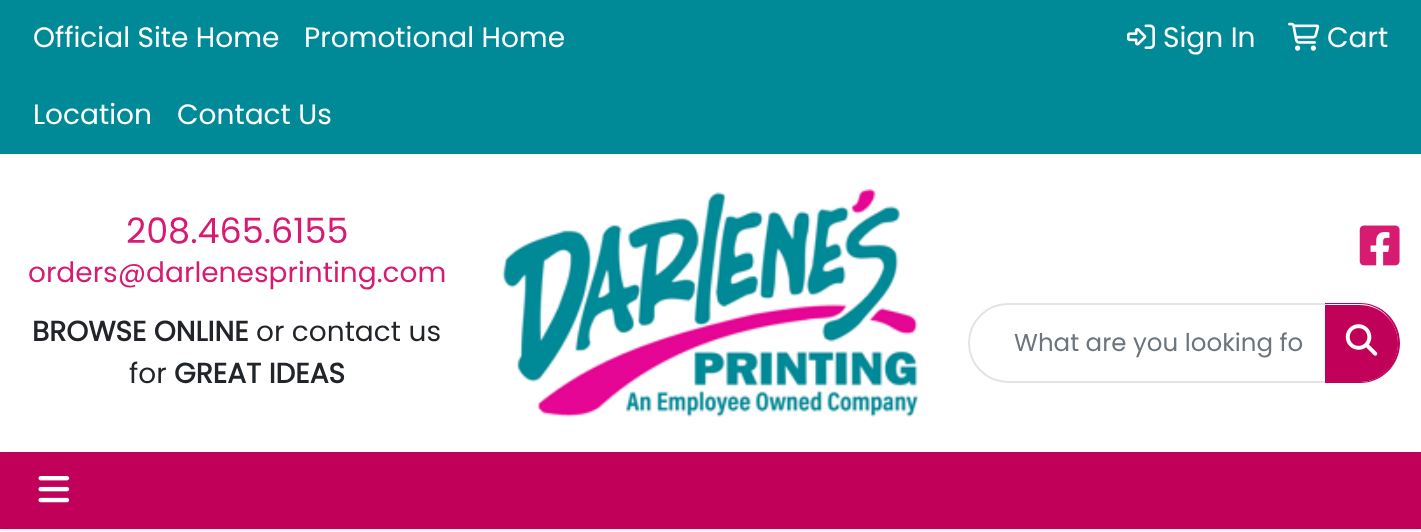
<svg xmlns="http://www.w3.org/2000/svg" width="1421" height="532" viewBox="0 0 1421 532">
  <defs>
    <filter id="blur1" x="-50%" y="-200%" width="200%" height="500%"><feGaussianBlur stdDeviation="3.5"/></filter>
  </defs>
  <rect width="100%" height="100%" fill="#ffffff"/>
  <rect x="0" y="0" width="1421" height="154" fill="#008a97"/>
  <text x="33" y="47" font-family="Poppins" font-size="28" fill="#ffffff">Official Site Home</text>
  <text x="304" y="47" font-family="Poppins" font-size="28" fill="#ffffff">Promotional Home</text>
  <text x="33" y="124" font-family="Poppins" font-size="28" fill="#ffffff">Location</text>
  <text x="177" y="124" font-family="Poppins" font-size="28" fill="#ffffff">Contact Us</text>
  <image x="1127" y="24" width="28" height="25" href="img1.png"/>
  <text x="1163" y="47" font-family="Poppins" font-size="28" fill="#ffffff">Sign In</text>
  <image x="1288" y="22" width="32" height="29" href="img2.png"/>
  <text x="1327" y="47" font-family="Poppins" font-size="28" fill="#ffffff">Cart</text>
  <text x="126" y="243" font-family="Poppins" font-size="35" fill="#d61b71">208.465.6155</text>
  <text x="28" y="282" font-family="Poppins" font-size="28" fill="#d61b71">orders@darlenesprinting.com</text>
  <text x="32" y="341" font-family="Poppins" font-size="28" font-weight="bold" fill="#212529">BROWSE ONLINE</text>
  <text x="256" y="341" font-family="Poppins" font-size="28" fill="#212529">or contact us</text>
  <text x="129" y="383" font-family="Poppins" font-size="28" fill="#212529">for</text>
  <text x="174" y="383" font-family="Poppins" font-size="28" font-weight="bold" fill="#212529">GREAT IDEAS</text>
  <image x="502" y="189" width="417" height="228" href="img3.png"/>
  <image x="1359" y="225" width="41" height="41" href="img4.png"/>
  <path d="M1008 304H1326V382H1008C986.5 382 969 364.5 969 343C969 321.5 986.5 304 1008 304Z" fill="none" stroke="#e4e4e4" stroke-width="2"/>
  <text x="1014" y="351" font-family="Poppins" font-size="24.5" fill="#6c757d">What are you looking fo</text>
  <path d="M1325 305H1359.5C1381 305 1398 322 1398 343.5C1398 365 1381 382 1359.5 382H1325Z" fill="#c10059"/>
  <path d="M1325 303H1360C1382 303 1400 321 1400 343C1400 365 1382 383 1360 383H1325ZM1325 304H1360C1381 304 1398 322 1398 343C1398 364 1381 382 1360 382H1325Z" fill="#c10059" fill-rule="evenodd"/>
  <image x="1345" y="324" width="33" height="32" href="img5.png"/>
  <rect x="0" y="455" width="1421" height="77" fill="#000000" fill-opacity="0.07" filter="url(#blur1)"/>
  <rect x="0" y="452" width="1421" height="77" fill="#c10059"/>
  <image x="38" y="476" width="32" height="27" href="img6.png"/>
</svg>
